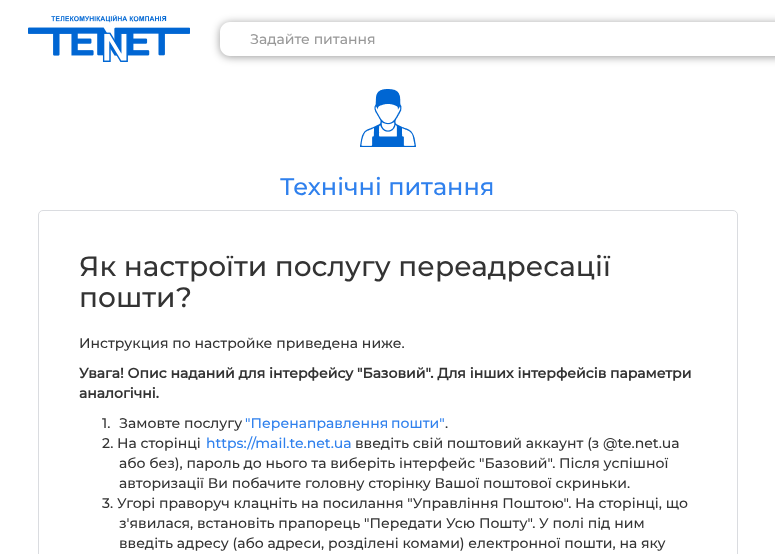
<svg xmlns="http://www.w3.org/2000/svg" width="775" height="554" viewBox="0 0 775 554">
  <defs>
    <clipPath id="clip1"><path d="M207 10H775V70H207ZM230 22H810C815.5 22 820 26.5 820 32V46C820 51.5 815.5 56 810 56H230C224.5 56 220 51.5 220 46V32C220 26.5 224.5 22 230 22Z" clip-rule="evenodd"/></clipPath>
    <filter id="blur1" x="-50%" y="-200%" width="200%" height="500%"><feGaussianBlur stdDeviation="4"/></filter>
  </defs>
  <rect width="100%" height="100%" fill="#ffffff"/>
  <image x="28" y="15" width="162" height="47" href="img1.png"/>
  <g clip-path="url(#clip1)">
    <rect x="220" y="23" width="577" height="34" rx="10" fill="#000000" fill-opacity="0.4" filter="url(#blur1)"/>
  </g>
  <text x="250" y="44" font-family="Montserrat" font-size="14" font-weight="500" fill="#999999">Задайте питання</text>
  <image x="360" y="89" width="56" height="58" href="img2.png"/>
  <text x="280" y="195" font-family="Montserrat" font-size="24" font-weight="500" fill="#2f80ed">Технічні питання</text>
  <rect x="38.5" y="210.5" width="699" height="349" rx="4.5" fill="none" stroke="#dadce0"/>
  <text x="79" y="276" font-family="Montserrat" font-size="28" font-weight="500" fill="#333333">Як настроїти послугу переадресації</text>
  <text x="79" y="307" font-family="Montserrat" font-size="28" font-weight="500" fill="#333333">пошти?</text>
  <text x="79" y="348" font-family="Montserrat" font-size="14" font-weight="500" fill="#333333">Инструкция по настройке приведена ниже.</text>
  <text x="79" y="378" font-family="Montserrat" font-size="14" font-weight="bold" fill="#333333">Увага! Опис наданий для інтерфейсу "Базовий". Для інших інтерфейсів параметри</text>
  <text x="79" y="398" font-family="Montserrat" font-size="14" font-weight="bold" fill="#333333">аналогічні.</text>
  <text x="102" y="428" font-family="Montserrat" font-size="14" font-weight="500" fill="#333333">1.</text>
  <text x="119" y="428" font-family="Montserrat" font-size="14" font-weight="500" fill="#333333">Замовте послугу</text>
  <text x="245" y="428" word-spacing="-1" font-family="Montserrat" font-size="14" font-weight="500" fill="#2f80ed">"Перенаправлення пошти"</text>
  <text x="445" y="428" font-family="Montserrat" font-size="14" font-weight="500" fill="#333333">.</text>
  <text x="102" y="448" font-family="Montserrat" font-size="14" font-weight="500" fill="#333333">2. На сторінці</text>
  <text x="206" y="448" font-family="Montserrat" font-size="14" font-weight="500" fill="#2f80ed">https://mail.te.net.ua</text>
  <text x="355" y="448" font-family="Montserrat" font-size="14" font-weight="500" fill="#333333">введіть свій поштовий аккаунт (з @te.net.ua</text>
  <text x="119" y="468" font-family="Montserrat" font-size="14" font-weight="500" fill="#333333">або без), пароль до нього та виберіть інтерфейс "Базовий". Після успішної</text>
  <text x="119" y="488" font-family="Montserrat" font-size="14" font-weight="500" fill="#333333">авторизації Ви побачите головну сторінку Вашої поштової скриньки.</text>
  <text x="102" y="508" font-family="Montserrat" font-size="14" font-weight="500" fill="#333333">3. Угорі праворуч клацніть на посилання "Управління Поштою". На сторінці, що</text>
  <text x="119" y="528" font-family="Montserrat" font-size="14" font-weight="500" fill="#333333">з'явилася, встановіть прапорець "Передати Усю Пошту". У полі під ним</text>
  <text x="119" y="548" font-family="Montserrat" font-size="14" font-weight="500" fill="#333333">введіть адресу (або адреси, розділені комами) електронної пошти, на яку</text>
</svg>
